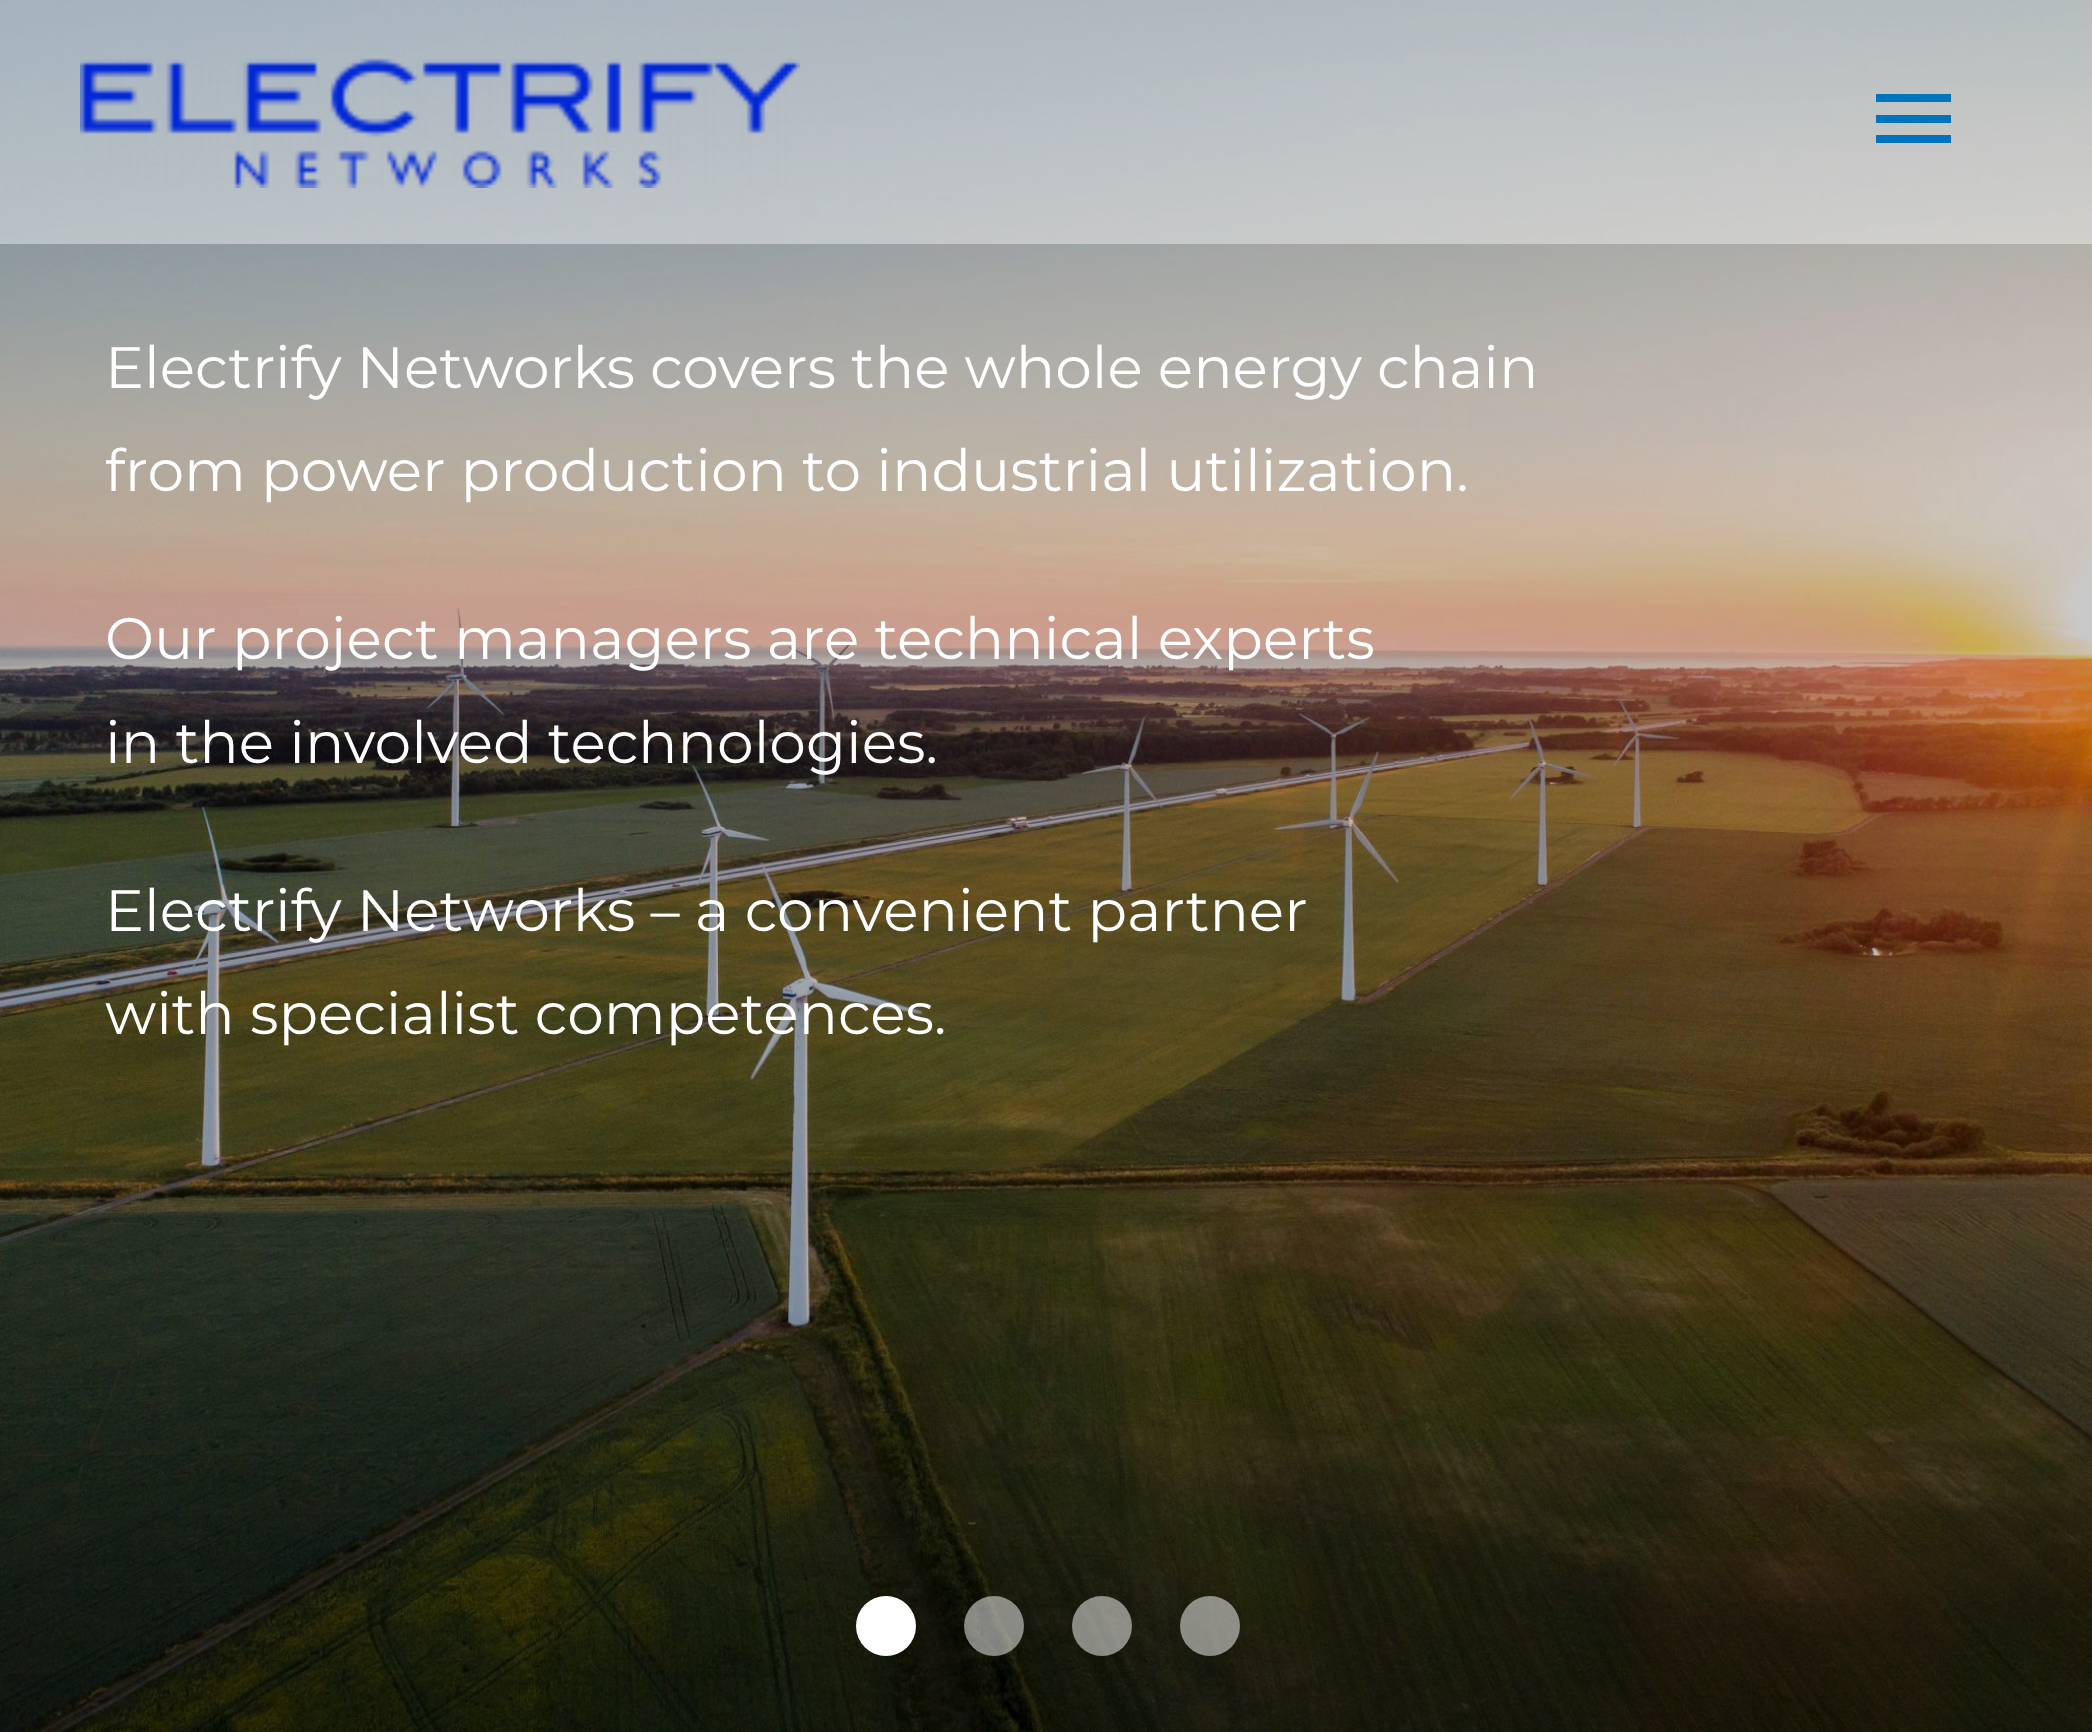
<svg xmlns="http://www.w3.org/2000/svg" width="2092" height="1732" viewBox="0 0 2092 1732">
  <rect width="100%" height="100%" fill="#ffffff"/>
  <image x="0" y="0" width="2092" height="1732" href="img2.png"/>
  <rect x="0" y="0" width="2092" height="244" fill="#ffffff" fill-opacity="0.4"/>
  <image x="80" y="58" width="720" height="130" href="img1.png"/>
  <path d="M1876 94H1951V102H1876ZM1876 123V115H1951V123ZM1876 143V135H1951V143Z" fill="#0274be"/>
  <circle cx="886" cy="1626" r="30" fill="#ffffff"/>
  <circle cx="994" cy="1626" r="30" fill="#ffffff" fill-opacity="0.5"/>
  <circle cx="1102" cy="1626" r="30" fill="#ffffff" fill-opacity="0.5"/>
  <circle cx="1210" cy="1626" r="30" fill="#ffffff" fill-opacity="0.5"/>
  <text x="105" y="388" word-spacing="-0.25" font-family="Montserrat" font-size="58.4" fill="#ffffff">Electrify Networks covers the whole energy chain</text>
  <text x="105" y="491" word-spacing="-0.25" font-family="Montserrat" font-size="58.4" fill="#ffffff">from power production to industrial utilization.</text>
  <text x="105" y="659" font-family="Montserrat" font-size="58.4" fill="#ffffff">Our project managers are technical experts</text>
  <text x="105" y="763" font-family="Montserrat" font-size="58.4" fill="#ffffff">in the involved technologies.</text>
  <text x="105" y="931" font-family="Montserrat" font-size="58.4" fill="#ffffff">Electrify Networks – a convenient partner</text>
  <text x="105" y="1034" font-family="Montserrat" font-size="58.4" fill="#ffffff">with specialist competences.</text>
</svg>
